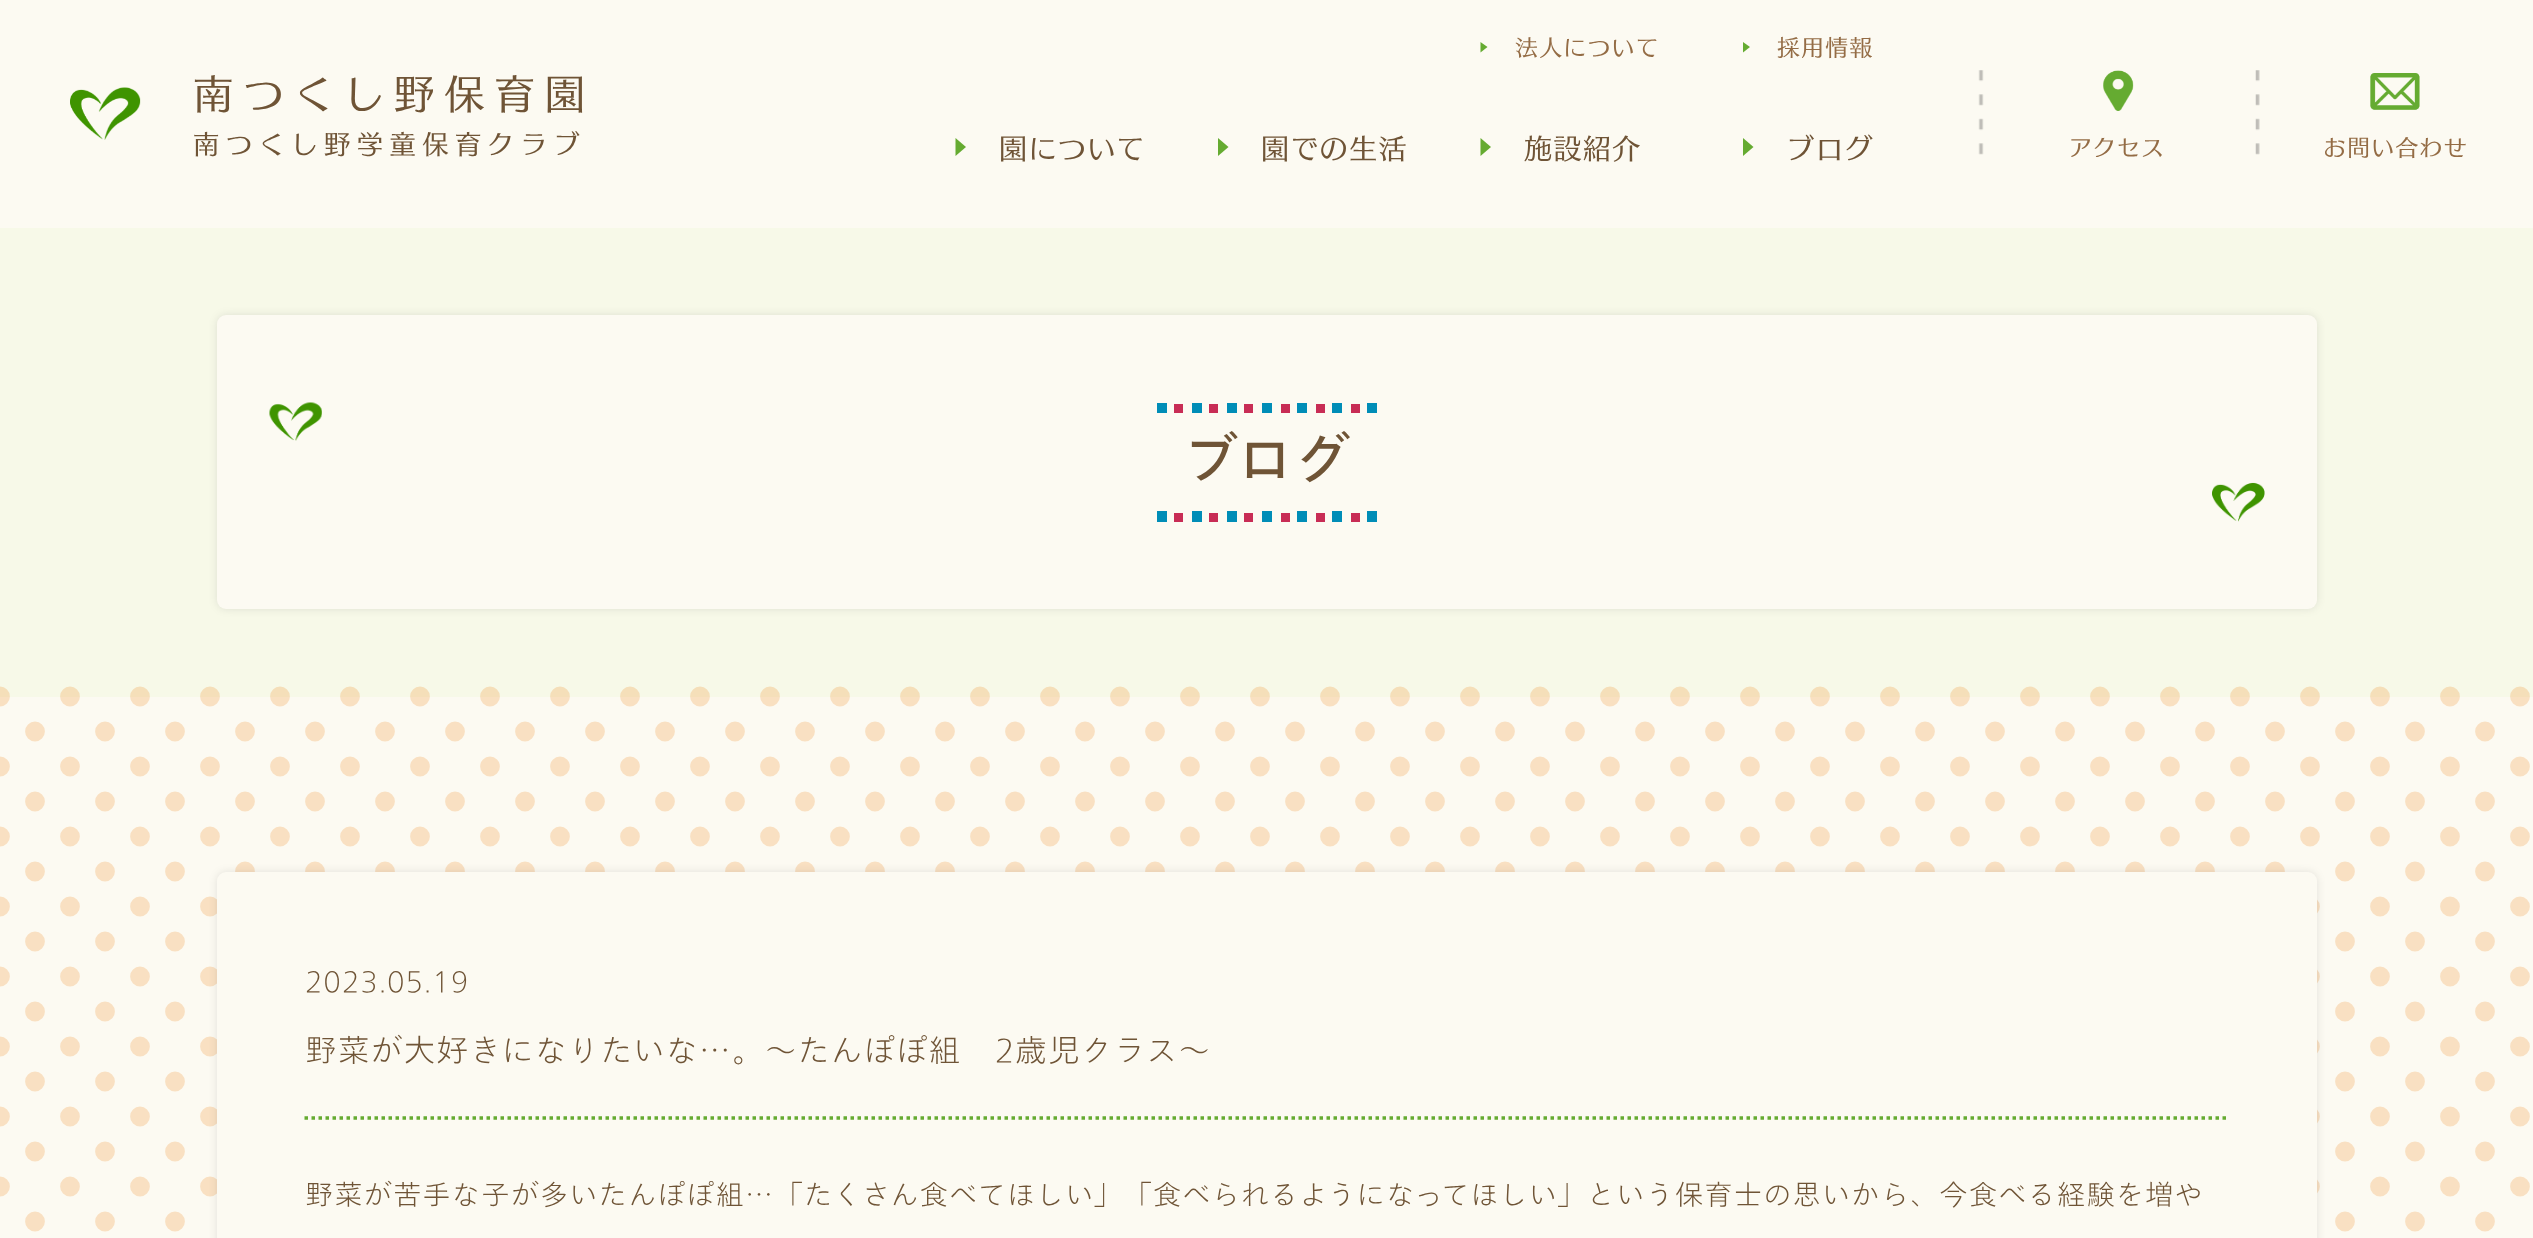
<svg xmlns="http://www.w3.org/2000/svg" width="2533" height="1238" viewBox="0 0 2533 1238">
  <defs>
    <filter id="blur1" x="-50%" y="-200%" width="200%" height="500%"><feGaussianBlur stdDeviation="4.5"/></filter>
  </defs>
  <rect width="100%" height="100%" fill="#fcfaf2"/>
  <image x="70" y="87" width="71" height="53" href="img1.png"/>
  <text x="193" y="109" font-family="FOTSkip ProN" font-size="40.25" font-weight="500" letter-spacing="10" fill="#6f5436">南つくし野保育園</text>
  <text x="193" y="154" font-family="FOTSkip ProN" font-size="26.25" font-weight="500" letter-spacing="6.5" fill="#6f5436">南つくし野学童保育クラブ</text>
  <path d="M1480.5 52.5V42L1487.5 47Z" fill="#65ab31"/>
  <text x="1515" y="56" font-family="FOTSkip ProN" font-size="22.75" font-weight="500" letter-spacing="1.4" fill="#946c45">法人について</text>
  <path d="M1743 52.5V42L1750 47Z" fill="#65ab31"/>
  <text x="1777" y="56" font-family="FOTSkip ProN" font-size="22.75" font-weight="500" letter-spacing="1.4" fill="#946c45">採用情報</text>
  <path d="M955.5 156V138L966 147Z" fill="#65ab31"/>
  <text x="999" y="159" font-family="FOTSkip ProN" font-size="28" font-weight="500" letter-spacing="1.4" fill="#6f5436">園について</text>
  <path d="M1218 156V138L1228.5 147Z" fill="#65ab31"/>
  <text x="1261" y="159" font-family="FOTSkip ProN" font-size="28" font-weight="500" letter-spacing="1.4" fill="#6f5436">園での生活</text>
  <path d="M1480.5 156V138L1491 147Z" fill="#65ab31"/>
  <text x="1524" y="159" font-family="FOTSkip ProN" font-size="28" font-weight="500" letter-spacing="1.4" fill="#6f5436">施設紹介</text>
  <path d="M1743 156V138L1753.5 147Z" fill="#65ab31"/>
  <text x="1786" y="159" font-family="FOTSkip ProN" font-size="28" font-weight="500" letter-spacing="1.4" fill="#6f5436">ブログ</text>
  <image x="1978" y="70" width="6" height="85" href="img2.png"/>
  <image x="2103" y="70" width="31" height="41" href="img3.png"/>
  <text x="2069" y="156" font-family="FOTSkip ProN" font-size="22.75" font-weight="500" letter-spacing="1.4" fill="#946c45">アクセス</text>
  <image x="2255" y="70" width="5" height="85" href="img4.png"/>
  <image x="2370" y="73" width="50" height="37" href="img5.png"/>
  <text x="2323" y="156" font-family="FOTSkip ProN" font-size="22.75" font-weight="500" letter-spacing="1.4" fill="#946c45">お問い合わせ</text>
  <rect x="0" y="228" width="2533" height="469" fill="#f7f9e8"/>
  <rect x="217" y="315" width="2100" height="294" rx="9" fill="#000000" fill-opacity="0.1" filter="url(#blur1)"/>
  <rect x="217" y="315" width="2100" height="294" rx="9" fill="#fcfaf2"/>
  <image x="269" y="402" width="53" height="39" href="img6.png"/>
  <rect x="1157" y="403" width="10" height="10" fill="#008db7"/>
  <rect x="1174" y="404" width="9" height="9" fill="#c82c55"/>
  <rect x="1192" y="403" width="10" height="10" fill="#008db7"/>
  <rect x="1209" y="404" width="9" height="9" fill="#c82c55"/>
  <rect x="1227" y="403" width="10" height="10" fill="#008db7"/>
  <rect x="1244" y="404" width="9" height="9" fill="#c82c55"/>
  <rect x="1262" y="403" width="10" height="10" fill="#008db7"/>
  <rect x="1281" y="404" width="9" height="9" fill="#c82c55"/>
  <rect x="1297" y="403" width="10" height="10" fill="#008db7"/>
  <rect x="1316" y="404" width="9" height="9" fill="#c82c55"/>
  <rect x="1332" y="403" width="10" height="10" fill="#008db7"/>
  <rect x="1351" y="404" width="9" height="9" fill="#c82c55"/>
  <rect x="1367" y="403" width="10" height="10" fill="#008db7"/>
  <text x="1182" y="480" font-family="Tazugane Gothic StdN" font-size="56" letter-spacing="1.4" fill="#6f5436">ブ</text>
  <text x="1237" y="480" font-family="Tazugane Gothic StdN" font-size="56" letter-spacing="1.4" fill="#6f5436">ログ</text>
  <rect x="1157" y="511" width="10" height="11" fill="#008db7"/>
  <rect x="1174" y="513" width="9" height="9" fill="#c82c55"/>
  <rect x="1192" y="511" width="10" height="11" fill="#008db7"/>
  <rect x="1209" y="513" width="9" height="9" fill="#c82c55"/>
  <rect x="1227" y="511" width="10" height="11" fill="#008db7"/>
  <rect x="1244" y="513" width="9" height="9" fill="#c82c55"/>
  <rect x="1262" y="511" width="10" height="11" fill="#008db7"/>
  <rect x="1281" y="513" width="9" height="9" fill="#c82c55"/>
  <rect x="1297" y="511" width="10" height="11" fill="#008db7"/>
  <rect x="1316" y="513" width="9" height="9" fill="#c82c55"/>
  <rect x="1332" y="511" width="10" height="11" fill="#008db7"/>
  <rect x="1351" y="513" width="9" height="9" fill="#c82c55"/>
  <rect x="1367" y="511" width="10" height="11" fill="#008db7"/>
  <image x="2212" y="482" width="53" height="40" href="img7.png"/>
  <path d="M0 696.5H2520.3" fill="none" stroke="#ee7800" stroke-opacity="0.2" stroke-width="19.8" stroke-linecap="round" stroke-dasharray="0 70"/>
  <path d="M0 766.5H2520.3" fill="none" stroke="#f9e0c2" stroke-width="19.8" stroke-linecap="round" stroke-dasharray="0 70"/>
  <path d="M0 836.5H2520.3" fill="none" stroke="#f9e0c2" stroke-width="19.8" stroke-linecap="round" stroke-dasharray="0 70"/>
  <path d="M0 906.5H2520.3" fill="none" stroke="#f9e0c2" stroke-width="19.8" stroke-linecap="round" stroke-dasharray="0 70"/>
  <path d="M0 976.5H2520.3" fill="none" stroke="#f9e0c2" stroke-width="19.8" stroke-linecap="round" stroke-dasharray="0 70"/>
  <path d="M0 1046.5H2520.3" fill="none" stroke="#f9e0c2" stroke-width="19.8" stroke-linecap="round" stroke-dasharray="0 70"/>
  <path d="M0 1116.5H2520.3" fill="none" stroke="#f9e0c2" stroke-width="19.8" stroke-linecap="round" stroke-dasharray="0 70"/>
  <path d="M0 1186.5H2520.3" fill="none" stroke="#f9e0c2" stroke-width="19.8" stroke-linecap="round" stroke-dasharray="0 70"/>
  <path d="M35 731.5H2485.3" fill="none" stroke="#f9e0c2" stroke-width="19.8" stroke-linecap="round" stroke-dasharray="0 70"/>
  <path d="M35 801.5H2485.3" fill="none" stroke="#f9e0c2" stroke-width="19.8" stroke-linecap="round" stroke-dasharray="0 70"/>
  <path d="M35 871.5H2485.3" fill="none" stroke="#f9e0c2" stroke-width="19.8" stroke-linecap="round" stroke-dasharray="0 70"/>
  <path d="M35 941.5H2485.3" fill="none" stroke="#f9e0c2" stroke-width="19.8" stroke-linecap="round" stroke-dasharray="0 70"/>
  <path d="M35 1011.5H2485.3" fill="none" stroke="#f9e0c2" stroke-width="19.8" stroke-linecap="round" stroke-dasharray="0 70"/>
  <path d="M35 1081.5H2485.3" fill="none" stroke="#f9e0c2" stroke-width="19.8" stroke-linecap="round" stroke-dasharray="0 70"/>
  <path d="M35 1151.5H2485.3" fill="none" stroke="#f9e0c2" stroke-width="19.8" stroke-linecap="round" stroke-dasharray="0 70"/>
  <path d="M35 1221.5H2485.3" fill="none" stroke="#f9e0c2" stroke-width="19.8" stroke-linecap="round" stroke-dasharray="0 70"/>
  <rect x="217" y="872" width="2100" height="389" rx="9" fill="#000000" fill-opacity="0.1" filter="url(#blur1)"/>
  <rect x="217" y="872" width="2100" height="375" rx="9" fill="#fcfaf2"/>
  <text x="305" y="992" font-family="Tazugane Gothic StdN" font-size="28" font-weight="100" letter-spacing="1.4" fill="#6f5436">2023.05.19</text>
  <path d="M304.5 1118H2229.5" fill="none" stroke="#65ab31" stroke-width="3.5" stroke-dasharray="3.5 3.5"/>
  <text x="305" y="1062" font-family="Tazugane Gothic StdN" font-size="31.5" font-weight="100" letter-spacing="1.4" fill="#6f5436">野菜が大好きになりたいな…。～たんぽぽ組　2歳児クラス～</text>
  <text x="305" y="1205" font-family="Tazugane Gothic StdN" font-size="28" font-weight="100" letter-spacing="1.4" fill="#6f5436">野菜が苦手な子が多いたんぽぽ組…「たくさん食べてほしい」「食べられるようになってほしい」という保育士の思いから、今食べる経験を増や</text>
</svg>
